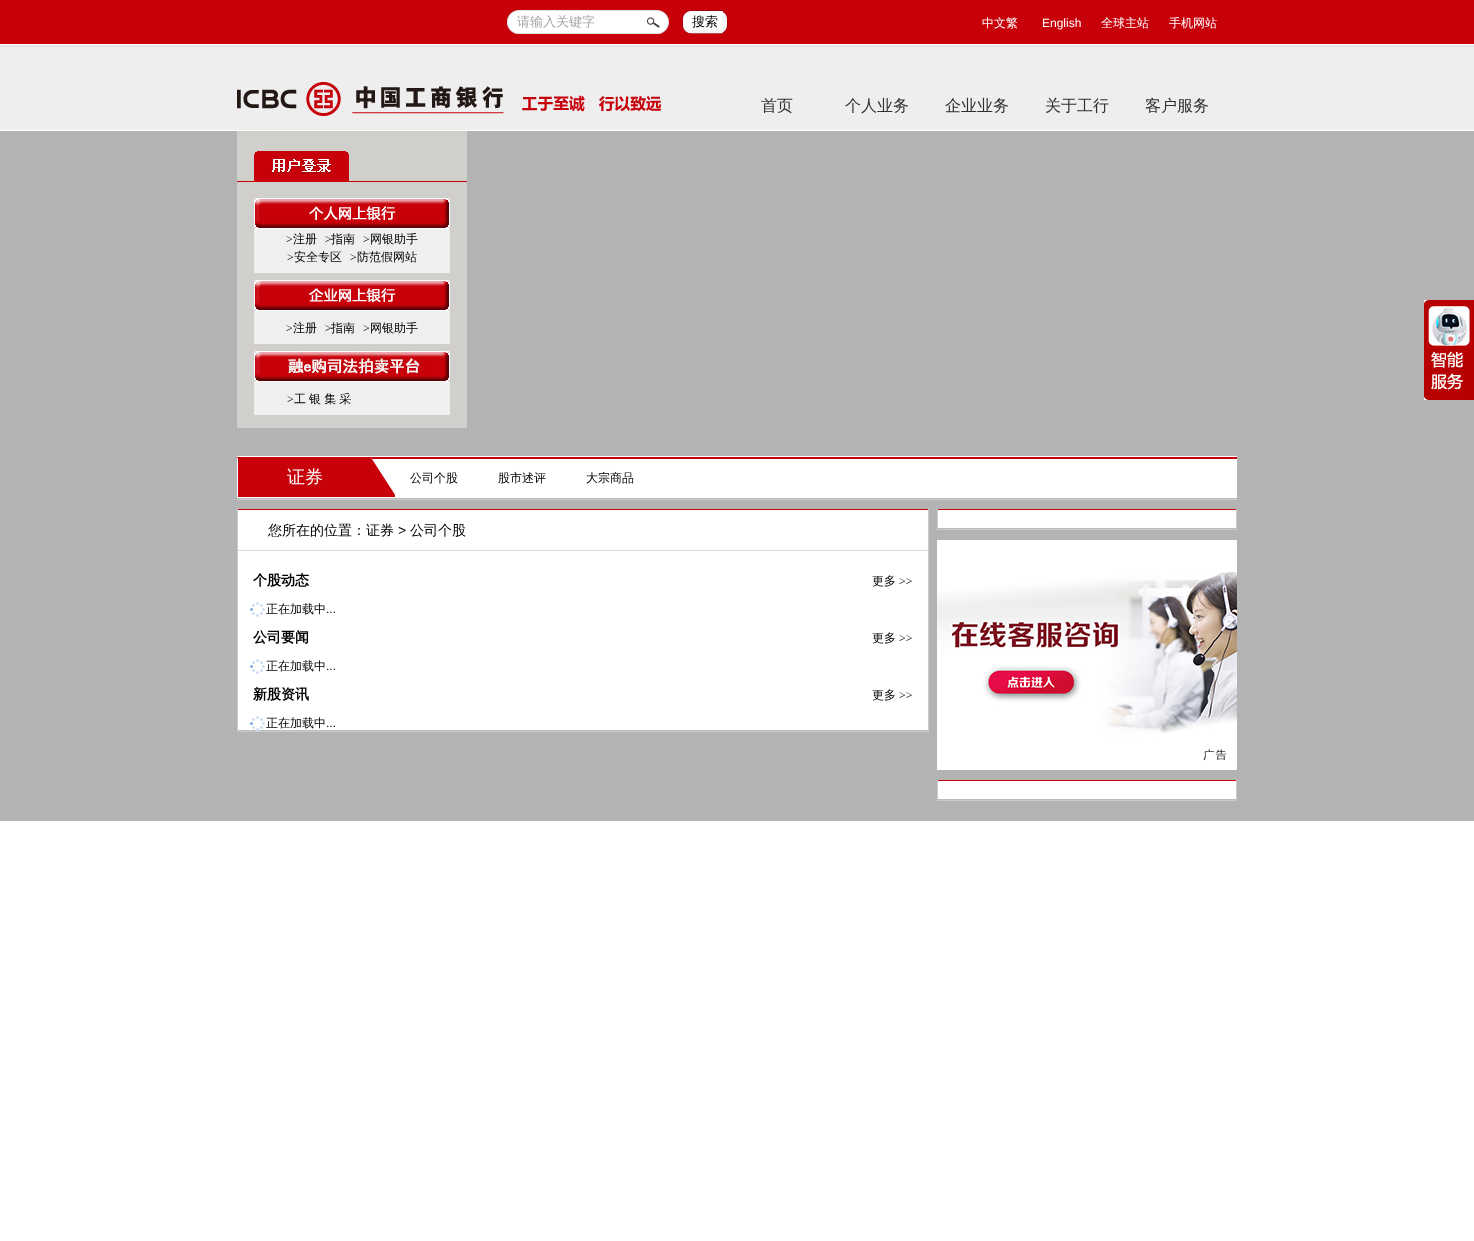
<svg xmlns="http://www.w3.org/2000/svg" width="1474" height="1241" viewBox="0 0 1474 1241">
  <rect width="100%" height="100%" fill="#ffffff"/>
  <rect x="0" y="131" width="1474" height="690" fill="#b3b3b3"/>
  <rect x="0" y="0" width="1474" height="44" fill="#c7000a"/>
  <image x="507" y="10" width="162" height="24" href="img1.png"/>
  <text x="517" y="26" font-family="WenQuanYi Zen Hei" font-size="13" font-weight="500" fill="#a6a6a6">请输入关键字</text>
  <image x="682" y="10" width="41" height="24" href="img2.png"/>
  <image x="692" y="10" width="36" height="24" href="img3.png"/>
  <text x="692" y="26" font-family="WenQuanYi Zen Hei" font-size="13" font-weight="500" fill="#000000">搜索</text>
  <text x="982" y="27" font-family="WenQuanYi Zen Hei" font-size="12" font-weight="500" fill="#ffffff">中文繁</text>
  <text x="1042" y="27" font-family="Liberation Sans" font-size="12" fill="#ffffff">English</text>
  <text x="1101" y="27" font-family="WenQuanYi Zen Hei" font-size="12" font-weight="500" fill="#ffffff">全球主站</text>
  <text x="1169" y="27" font-family="WenQuanYi Zen Hei" font-size="12" font-weight="500" fill="#ffffff">手机网站</text>
  <rect x="0" y="45" width="1474" height="2" fill="#e4e4e4"/>
  <rect x="0" y="47" width="1474" height="83" fill="#eeeeee"/>
  <image x="237" y="82" width="425" height="34" href="img4.png"/>
  <text x="761" y="111" font-family="WenQuanYi Zen Hei" font-size="16" font-weight="500" fill="#313030">首页</text>
  <text x="845" y="111" font-family="WenQuanYi Zen Hei" font-size="16" font-weight="500" fill="#313030">个人业务</text>
  <text x="945" y="111" font-family="WenQuanYi Zen Hei" font-size="16" font-weight="500" fill="#313030">企业业务</text>
  <text x="1045" y="111" font-family="WenQuanYi Zen Hei" font-size="16" font-weight="500" fill="#313030">关于工行</text>
  <text x="1145" y="111" font-family="WenQuanYi Zen Hei" font-size="16" font-weight="500" fill="#313030">客户服务</text>
  <rect x="237" y="131" width="230" height="297" fill="#d1cfcc"/>
  <rect x="237" y="181" width="230" height="1" fill="#c7000a"/>
  <image x="254" y="151" width="95" height="30" href="img5.png"/>
  <image x="254" y="198" width="196" height="31" href="img6.png"/>
  <rect x="254" y="229" width="196" height="44" fill="#efefef"/>
  <text x="286" y="243" font-family="Liberation Serif" font-size="12" fill="#000000">&gt;</text>
  <text x="293" y="243" font-family="WenQuanYi Zen Hei" font-size="12" font-weight="500" fill="#000000">注册</text>
  <text x="325" y="243" font-family="Liberation Serif" font-size="12" fill="#000000">&gt;</text>
  <text x="331" y="243" font-family="WenQuanYi Zen Hei" font-size="12" font-weight="500" fill="#000000">指南</text>
  <text x="363" y="243" font-family="Liberation Serif" font-size="12" fill="#000000">&gt;</text>
  <text x="370" y="243" font-family="WenQuanYi Zen Hei" font-size="12" font-weight="500" fill="#000000">网银助手</text>
  <text x="287" y="261" font-family="Liberation Serif" font-size="12" fill="#000000">&gt;</text>
  <text x="294" y="261" font-family="WenQuanYi Zen Hei" font-size="12" font-weight="500" fill="#000000">安全专区</text>
  <text x="350" y="261" font-family="Liberation Serif" font-size="12" fill="#000000">&gt;</text>
  <text x="357" y="261" font-family="WenQuanYi Zen Hei" font-size="12" font-weight="500" fill="#000000">防范假网站</text>
  <image x="254" y="280" width="196" height="31" href="img7.png"/>
  <rect x="254" y="311" width="196" height="33" fill="#efefef"/>
  <text x="286" y="332" font-family="Liberation Serif" font-size="12" fill="#000000">&gt;</text>
  <text x="293" y="332" font-family="WenQuanYi Zen Hei" font-size="12" font-weight="500" fill="#000000">注册</text>
  <text x="325" y="332" font-family="Liberation Serif" font-size="12" fill="#000000">&gt;</text>
  <text x="331" y="332" font-family="WenQuanYi Zen Hei" font-size="12" font-weight="500" fill="#000000">指南</text>
  <text x="363" y="332" font-family="Liberation Serif" font-size="12" fill="#000000">&gt;</text>
  <text x="370" y="332" font-family="WenQuanYi Zen Hei" font-size="12" font-weight="500" fill="#000000">网银助手</text>
  <image x="254" y="351" width="196" height="31" href="img8.png"/>
  <rect x="254" y="382" width="196" height="33" fill="#efefef"/>
  <text x="287" y="403" font-family="Liberation Serif" font-size="12" fill="#000000">&gt;</text>
  <text x="294" y="403" word-spacing="-0.5" font-family="WenQuanYi Zen Hei" font-size="12" font-weight="500" fill="#000000">工 银 集 采</text>
  <image x="1424" y="300" width="50" height="100" href="img9.png"/>
  <rect x="237" y="456" width="1000" height="1" fill="#ffffff"/>
  <rect x="237" y="458" width="1000" height="40" fill="#ffffff"/>
  <image x="237" y="498" width="1000" height="2" href="img10.png"/>
  <rect x="237" y="457" width="1000" height="1" fill="#c8000a"/>
  <image x="238" y="458" width="157" height="39" href="img11.png"/>
  <text x="287" y="483" font-family="WenQuanYi Zen Hei" font-size="18" font-weight="500" fill="#ffffff">证券</text>
  <rect x="372" y="458" width="865" height="1" fill="#c8000a"/>
  <text x="410" y="482" font-family="WenQuanYi Zen Hei" font-size="12" font-weight="500" fill="#000000">公司个股</text>
  <text x="498" y="482" font-family="WenQuanYi Zen Hei" font-size="12" font-weight="500" fill="#000000">股市述评</text>
  <text x="586" y="482" font-family="WenQuanYi Zen Hei" font-size="12" font-weight="500" fill="#000000">大宗商品</text>
  <rect x="238" y="510" width="690" height="220" fill="#ffffff"/>
  <image x="238" y="730" width="690" height="2" href="img12.png"/>
  <rect x="237" y="509" width="692" height="1" fill="#c7000a"/>
  <rect x="928" y="509" width="1" height="223" fill="#cbcbcb"/>
  <rect x="237" y="509" width="1" height="223" fill="#cbcbcb"/>
  <rect x="238" y="550" width="690" height="1" fill="#dadada"/>
  <text x="268" y="535" font-family="WenQuanYi Zen Hei" font-size="14" font-weight="500" fill="#000000">您所在的位置：证券</text>
  <text x="398" y="535" font-family="Liberation Sans" font-size="14" fill="#000000">&gt;</text>
  <text x="410" y="535" font-family="WenQuanYi Zen Hei" font-size="14" font-weight="500" fill="#000000">公司个股</text>
  <text x="253" y="585" font-family="WenQuanYi Zen Hei" font-size="14" font-weight="bold" fill="#000000">个股动态</text>
  <text x="872" y="585" font-family="WenQuanYi Zen Hei" font-size="12" font-weight="500" fill="#000000">更多</text>
  <text x="899" y="585" font-family="Liberation Serif" font-size="12" fill="#000000">&gt;&gt;</text>
  <image x="250" y="602" width="15" height="15" href="img13.png"/>
  <text x="266" y="613" font-family="WenQuanYi Zen Hei" font-size="12" font-weight="500" fill="#000000">正在加载中</text>
  <text x="326" y="613" font-family="Liberation Sans" font-size="12" fill="#000000">...</text>
  <text x="253" y="642" font-family="WenQuanYi Zen Hei" font-size="14" font-weight="bold" fill="#000000">公司要闻</text>
  <text x="872" y="642" font-family="WenQuanYi Zen Hei" font-size="12" font-weight="500" fill="#000000">更多</text>
  <text x="899" y="642" font-family="Liberation Serif" font-size="12" fill="#000000">&gt;&gt;</text>
  <image x="250" y="659" width="15" height="15" href="img13.png"/>
  <text x="266" y="670" font-family="WenQuanYi Zen Hei" font-size="12" font-weight="500" fill="#000000">正在加载中</text>
  <text x="326" y="670" font-family="Liberation Sans" font-size="12" fill="#000000">...</text>
  <text x="253" y="699" font-family="WenQuanYi Zen Hei" font-size="14" font-weight="bold" fill="#000000">新股资讯</text>
  <text x="872" y="699" font-family="WenQuanYi Zen Hei" font-size="12" font-weight="500" fill="#000000">更多</text>
  <text x="899" y="699" font-family="Liberation Serif" font-size="12" fill="#000000">&gt;&gt;</text>
  <image x="250" y="716" width="15" height="15" href="img14.png"/>
  <text x="266" y="727" font-family="WenQuanYi Zen Hei" font-size="12" font-weight="500" fill="#000000">正在加载中</text>
  <text x="326" y="727" font-family="Liberation Sans" font-size="12" fill="#000000">...</text>
  <rect x="938" y="510" width="298" height="18" fill="#ffffff"/>
  <image x="938" y="528" width="298" height="2" href="img15.png"/>
  <rect x="937" y="509" width="300" height="1" fill="#c7000a"/>
  <rect x="1236" y="509" width="1" height="21" fill="#cbcbcb"/>
  <rect x="937" y="509" width="1" height="21" fill="#cbcbcb"/>
  <image x="937" y="540" width="300" height="230" href="img16.png"/>
  <rect x="938" y="781" width="298" height="18" fill="#ffffff"/>
  <image x="938" y="799" width="298" height="2" href="img15.png"/>
  <rect x="937" y="780" width="300" height="1" fill="#c7000a"/>
  <rect x="1236" y="780" width="1" height="21" fill="#cbcbcb"/>
  <rect x="937" y="780" width="1" height="21" fill="#cbcbcb"/>
</svg>
